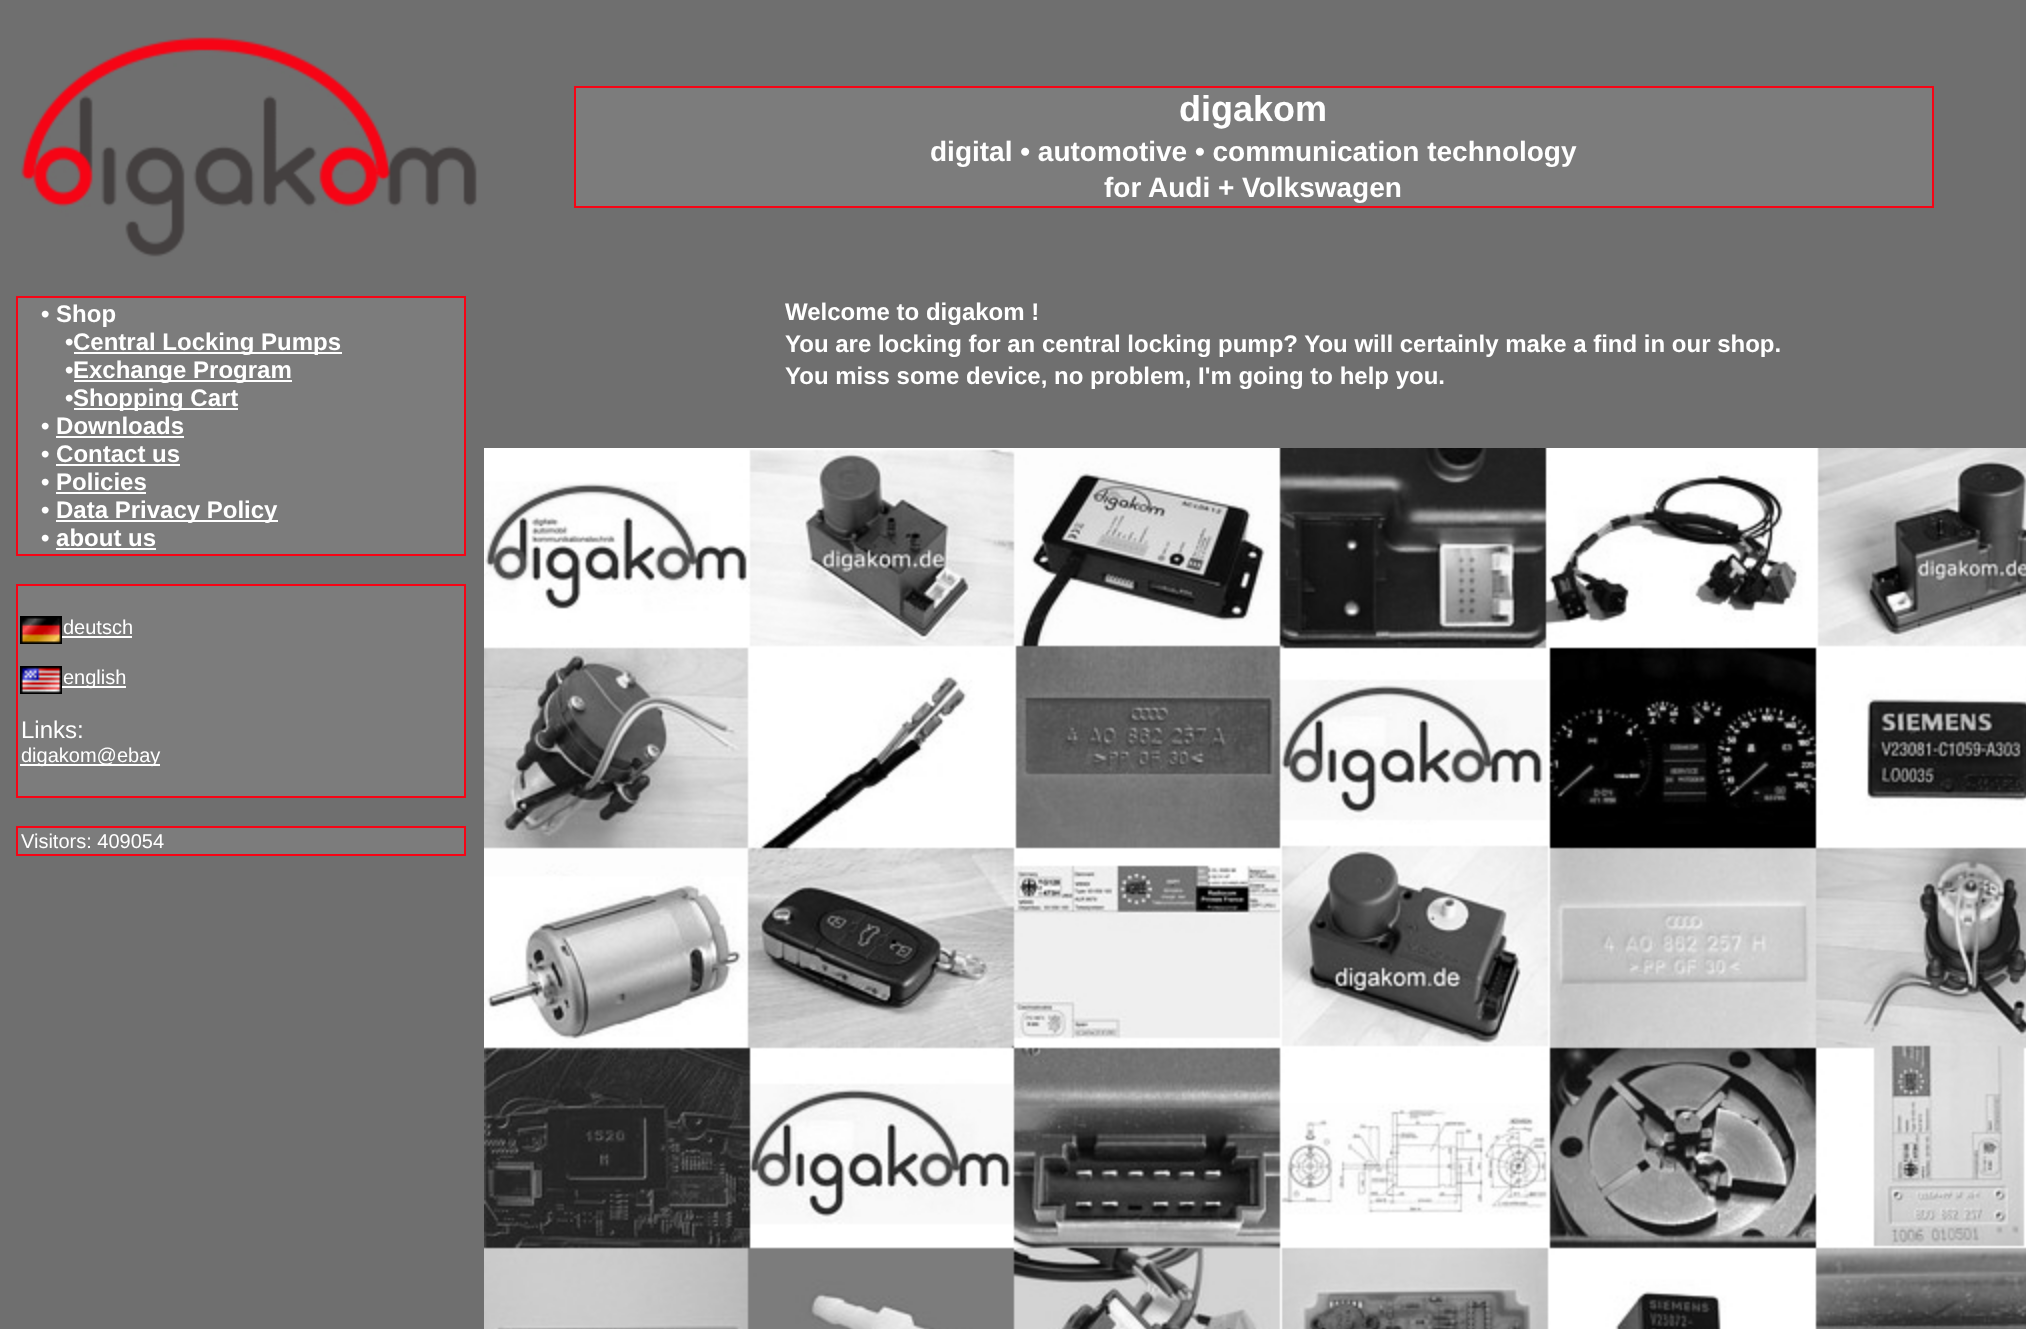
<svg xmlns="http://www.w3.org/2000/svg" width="2026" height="1329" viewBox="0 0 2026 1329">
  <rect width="100%" height="100%" fill="#6f6f6f"/>
  <image x="21" y="37" width="456" height="220" href="img1.png"/>
  <rect x="575" y="87" width="1358" height="120" fill="none" stroke="#f70415" stroke-width="2"/>
  <rect x="576" y="88" width="1356" height="118" fill="#7c7c7c"/>
  <text x="1179" y="121" font-family="Liberation Sans" font-size="36" font-weight="bold" fill="#ffffff">digakom</text>
  <text x="930" y="161" font-family="Liberation Sans" font-size="28" font-weight="bold" fill="#ffffff">digital • automotive • communication technology</text>
  <text x="1104" y="197" font-family="Liberation Sans" font-size="28" font-weight="bold" fill="#ffffff">for</text>
  <text x="1148" y="197" font-family="Liberation Sans" font-size="28" font-weight="bold" fill="#ffffff">Audi + Volkswagen</text>
  <rect x="17" y="297" width="448" height="258" fill="none" stroke="#f70415" stroke-width="2"/>
  <rect x="18" y="298" width="446" height="256" fill="#7c7c7c"/>
  <text x="41" y="322" font-family="Liberation Sans" font-size="24" font-weight="bold" fill="#ffffff">• Shop</text>
  <text x="65" y="350" font-family="Liberation Sans" font-size="24" font-weight="bold" fill="#ffffff">•</text>
  <rect x="74" y="352" width="268" height="2" fill="#ffffff"/>
  <text x="73" y="350" font-family="Liberation Sans" font-size="24" font-weight="bold" fill="#ffffff">Central Locking Pumps</text>
  <text x="65" y="378" font-family="Liberation Sans" font-size="24" font-weight="bold" fill="#ffffff">•</text>
  <rect x="74" y="380" width="218" height="2" fill="#ffffff"/>
  <text x="73" y="378" font-family="Liberation Sans" font-size="24" font-weight="bold" fill="#ffffff">Exchange Program</text>
  <text x="65" y="406" font-family="Liberation Sans" font-size="24" font-weight="bold" fill="#ffffff">•</text>
  <rect x="74" y="408" width="164" height="2" fill="#ffffff"/>
  <text x="73" y="406" font-family="Liberation Sans" font-size="24" font-weight="bold" fill="#ffffff">Shopping Cart</text>
  <text x="41" y="434" font-family="Liberation Sans" font-size="24" font-weight="bold" fill="#ffffff">• Downloads</text>
  <rect x="56" y="436" width="128" height="2" fill="#ffffff"/>
  <text x="41" y="462" font-family="Liberation Sans" font-size="24" font-weight="bold" fill="#ffffff">• Contact us</text>
  <rect x="56" y="464" width="124" height="2" fill="#ffffff"/>
  <text x="41" y="490" font-family="Liberation Sans" font-size="24" font-weight="bold" fill="#ffffff">• Policies</text>
  <rect x="56" y="492" width="90" height="2" fill="#ffffff"/>
  <text x="41" y="518" font-family="Liberation Sans" font-size="24" font-weight="bold" fill="#ffffff">•</text>
  <rect x="56" y="520" width="222" height="2" fill="#ffffff"/>
  <text x="56" y="518" font-family="Liberation Sans" font-size="24" font-weight="bold" fill="#ffffff">Data Privacy Policy</text>
  <text x="41" y="546" font-family="Liberation Sans" font-size="24" font-weight="bold" fill="#ffffff">• about us</text>
  <rect x="56" y="548" width="100" height="2" fill="#ffffff"/>
  <rect x="17" y="585" width="448" height="212" fill="none" stroke="#f70415" stroke-width="2"/>
  <rect x="18" y="586" width="446" height="210" fill="#7c7c7c"/>
  <image x="20" y="616" width="42" height="28" href="img2.png"/>
  <text x="63" y="634" font-family="Liberation Sans" font-size="20" fill="#ffffff">deutsch</text>
  <rect x="62" y="636" width="70" height="2" fill="#ffffff"/>
  <image x="20" y="666" width="42" height="28" href="img3.png"/>
  <rect x="62" y="686" width="64" height="2" fill="#ffffff"/>
  <text x="63" y="684" font-family="Liberation Sans" font-size="20" fill="#ffffff">english</text>
  <text x="21" y="738" font-family="Liberation Sans" font-size="24" fill="#ffffff">Links:</text>
  <rect x="20" y="764" width="140" height="2" fill="#ffffff"/>
  <text x="21" y="762" font-family="Liberation Sans" font-size="20" fill="#ffffff">digakom@ebay</text>
  <rect x="17" y="827" width="448" height="28" fill="none" stroke="#f70415" stroke-width="2"/>
  <rect x="18" y="828" width="446" height="26" fill="#7c7c7c"/>
  <text x="21" y="848" font-family="Liberation Sans" font-size="20" fill="#ffffff">Visitors: 409054</text>
  <text x="785" y="320" font-family="Liberation Sans" font-size="24" font-weight="bold" fill="#ffffff">Welcome to digakom !</text>
  <text x="785" y="352" font-family="Liberation Sans" font-size="24" font-weight="bold" fill="#ffffff">You are locking for an central locking pump? You will certainly make a find in our shop.</text>
  <text x="785" y="384" font-family="Liberation Sans" font-size="24" font-weight="bold" fill="#ffffff">You miss some device, no problem, I'm going to help you.</text>
  <image x="484" y="448" width="1542" height="881" href="img4.png"/>
</svg>
